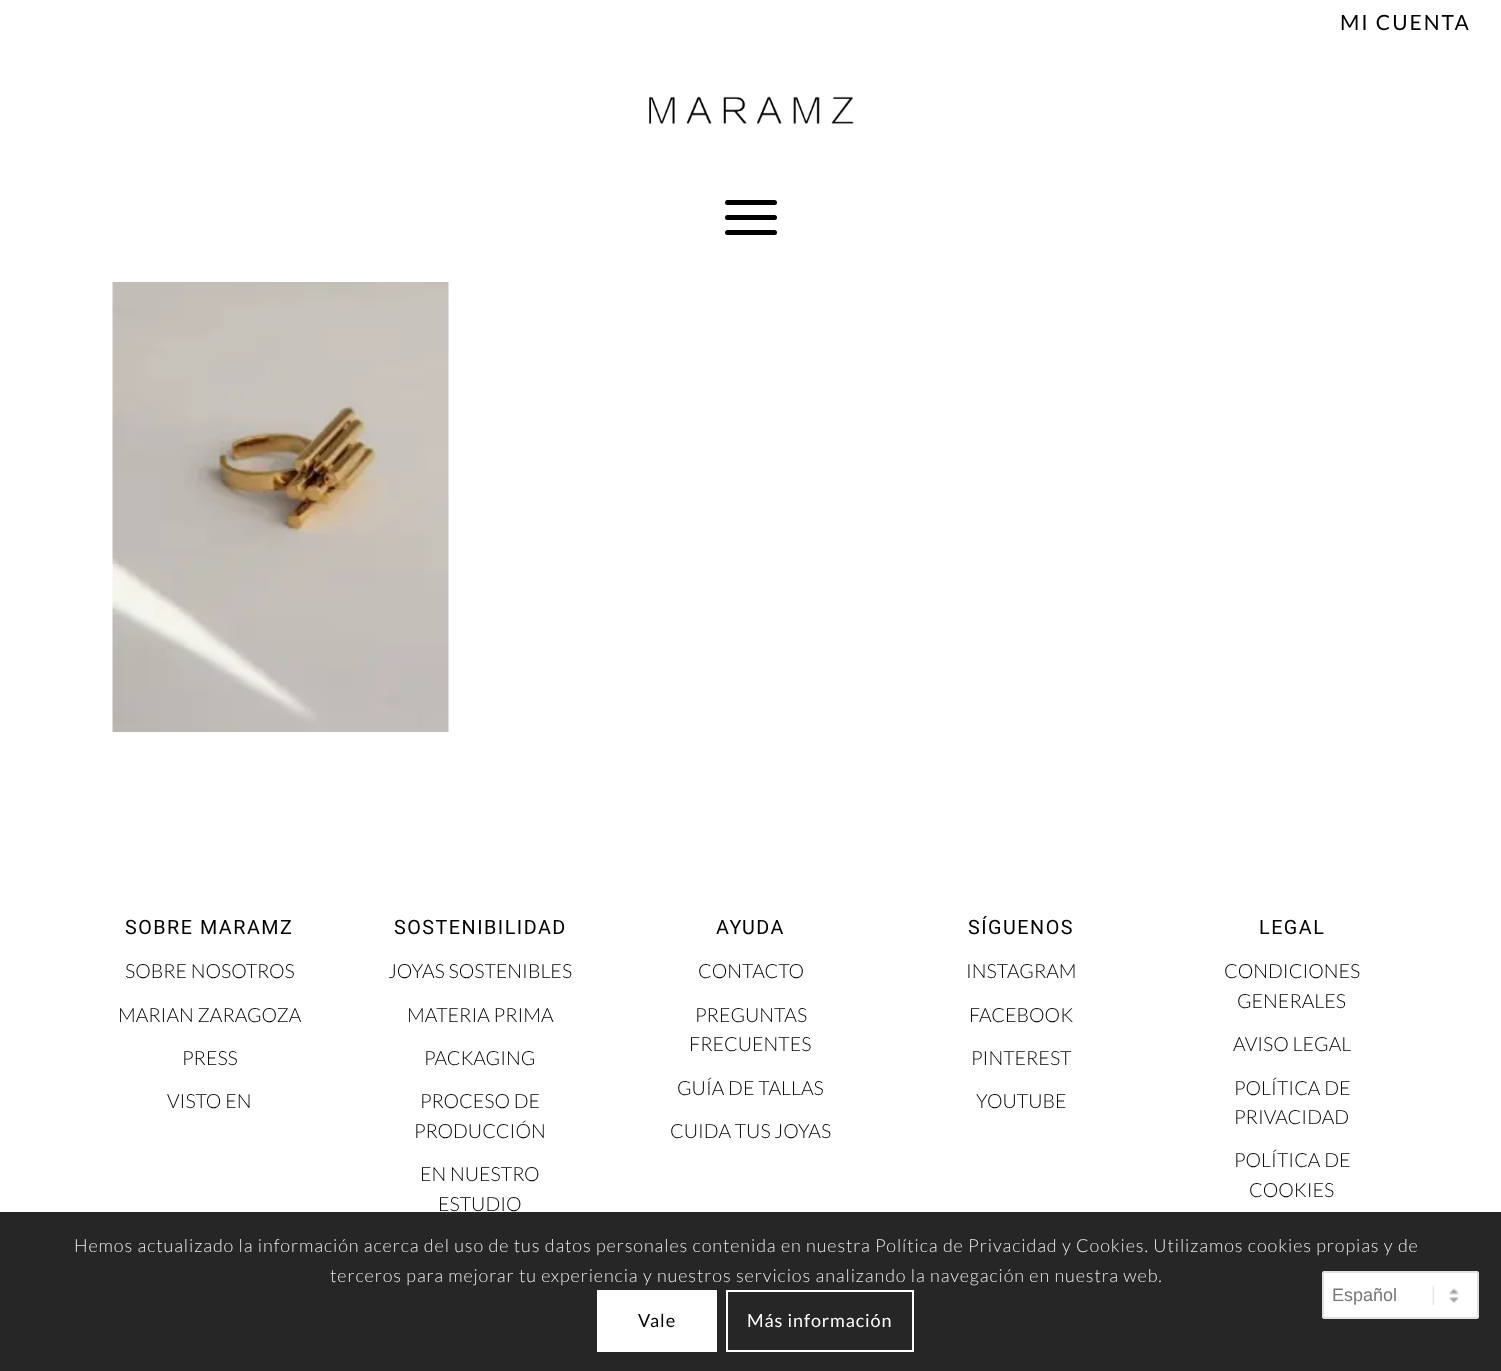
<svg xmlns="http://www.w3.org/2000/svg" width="1501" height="1371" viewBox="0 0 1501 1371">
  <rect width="100%" height="100%" fill="#ffffff"/>
  <rect x="0" y="1212" width="1501" height="159" fill="#262626"/>
  <text x="1340" y="30" font-family="Lato" font-size="21" letter-spacing="2" fill="#000000">MI CUENTA</text>
  <image x="649" y="96" width="205" height="29" href="img1.png"/>
  <rect x="725" y="215" width="52" height="5" rx="2.5" fill="#000000"/>
  <rect x="725" y="200" width="52" height="5" rx="2.5" fill="#000000"/>
  <rect x="725" y="230" width="52" height="5" rx="2.5" fill="#000000"/>
  <image x="112" y="282" width="337" height="450" href="img2.png"/>
  <text x="125" y="934" font-family="Roboto" font-size="19.75" letter-spacing="1.5" fill="#000000">SOBRE MARAMZ</text>
  <text x="125" y="978" font-family="Lato" font-size="19.5" font-weight="300" fill="#000000">SOBRE NOSOTROS</text>
  <text x="118" y="1022" font-family="Lato" font-size="19.5" font-weight="300" fill="#000000">MARIAN ZARAGOZA</text>
  <text x="182" y="1065" font-family="Lato" font-size="19.5" font-weight="300" fill="#000000">PRESS</text>
  <text x="167" y="1108" font-family="Lato" font-size="19.5" font-weight="300" fill="#000000">VISTO EN</text>
  <text x="394" y="934" font-family="Roboto" font-size="19.75" letter-spacing="1.5" fill="#000000">SOSTENIBILIDAD</text>
  <text x="388" y="978" font-family="Lato" font-size="19.5" font-weight="300" fill="#000000">JOYAS SOSTENIBLES</text>
  <text x="407" y="1022" font-family="Lato" font-size="19.5" font-weight="300" fill="#000000">MATERIA PRIMA</text>
  <text x="424" y="1065" font-family="Lato" font-size="19.5" font-weight="300" fill="#000000">PACKAGING</text>
  <text x="420" y="1108" font-family="Lato" font-size="19.5" font-weight="300" fill="#000000">PROCESO DE</text>
  <text x="414" y="1138" font-family="Lato" font-size="19.5" font-weight="300" fill="#000000">PRODUCCIÓN</text>
  <text x="420" y="1181" font-family="Lato" font-size="19.5" font-weight="300" fill="#000000">EN NUESTRO</text>
  <text x="438" y="1211" font-family="Lato" font-size="19.5" font-weight="300" fill="#000000">ESTUDIO</text>
  <text x="716" y="934" font-family="Roboto" font-size="19.75" letter-spacing="1.5" fill="#000000">AYUDA</text>
  <text x="698" y="978" font-family="Lato" font-size="19.5" font-weight="300" fill="#000000">CONTACTO</text>
  <text x="695" y="1022" font-family="Lato" font-size="19.5" font-weight="300" fill="#000000">PREGUNTAS</text>
  <text x="689" y="1051" font-family="Lato" font-size="19.5" font-weight="300" fill="#000000">FRECUENTES</text>
  <text x="677" y="1095" font-family="Lato" font-size="19.5" font-weight="300" fill="#000000">GUÍA DE TALLAS</text>
  <text x="670" y="1138" font-family="Lato" font-size="19.5" font-weight="300" fill="#000000">CUIDA TUS JOYAS</text>
  <text x="968" y="934" font-family="Roboto" font-size="19.75" letter-spacing="1.5" fill="#000000">SÍGUENOS</text>
  <text x="966" y="978" font-family="Lato" font-size="19.5" font-weight="300" fill="#000000">INSTAGRAM</text>
  <text x="969" y="1022" font-family="Lato" font-size="19.5" font-weight="300" fill="#000000">FACEBOOK</text>
  <text x="971" y="1065" font-family="Lato" font-size="19.5" font-weight="300" fill="#000000">PINTEREST</text>
  <text x="976" y="1108" font-family="Lato" font-size="19.5" font-weight="300" fill="#000000">YOUTUBE</text>
  <text x="1259" y="934" font-family="Roboto" font-size="19.75" letter-spacing="1.5" fill="#000000">LEGAL</text>
  <text x="1224" y="978" font-family="Lato" font-size="19.5" font-weight="300" fill="#000000">CONDICIONES</text>
  <text x="1237" y="1008" font-family="Lato" font-size="19.5" font-weight="300" fill="#000000">GENERALES</text>
  <text x="1233" y="1051" font-family="Lato" font-size="19.5" font-weight="300" fill="#000000">AVISO LEGAL</text>
  <text x="1234" y="1095" font-family="Lato" font-size="19.5" font-weight="300" fill="#000000">POLÍTICA DE</text>
  <text x="1234" y="1124" font-family="Lato" font-size="19.5" font-weight="300" fill="#000000">PRIVACIDAD</text>
  <text x="1234" y="1167" font-family="Lato" font-size="19.5" font-weight="300" fill="#000000">POLÍTICA DE</text>
  <text x="1249" y="1197" font-family="Lato" font-size="19.5" font-weight="300" fill="#000000">COOKIES</text>
  <text x="74" y="1252" font-family="Lato" font-size="18" font-weight="300" letter-spacing="0.9" fill="#e9e9e9">Hemos actualizado la información acerca del uso de tus datos personales contenida en nuestra Política de Privacidad y Cookies. Utilizamos cookies propias y de</text>
  <text x="330" y="1282" font-family="Lato" font-size="18" font-weight="300" letter-spacing="0.9" fill="#e9e9e9">terceros para mejorar tu experiencia y nuestros servicios analizando la navegación en nuestra web.</text>
  <rect x="597" y="1290" width="120" height="62" fill="#ffffff"/>
  <text x="638" y="1327" font-family="Lato" font-size="18" letter-spacing="0.9" fill="#000000">Vale</text>
  <rect x="727" y="1291" width="186" height="60" fill="none" stroke="#ffffff" stroke-width="2"/>
  <text x="747" y="1327" font-family="Lato" font-size="18" letter-spacing="0.9" fill="#ffffff">Más información</text>
  <rect x="1322" y="1271" width="157" height="48" rx="3" fill="#ffffff"/>
  <image x="1432" y="1285" width="27" height="20" href="img3.png"/>
  <rect x="1323" y="1272" width="155" height="46" rx="2" fill="none" stroke="#e1e1e1" stroke-width="2"/>
  <text x="1332" y="1301" font-family="Liberation Sans" font-size="18" fill="#777777">Español</text>
</svg>
